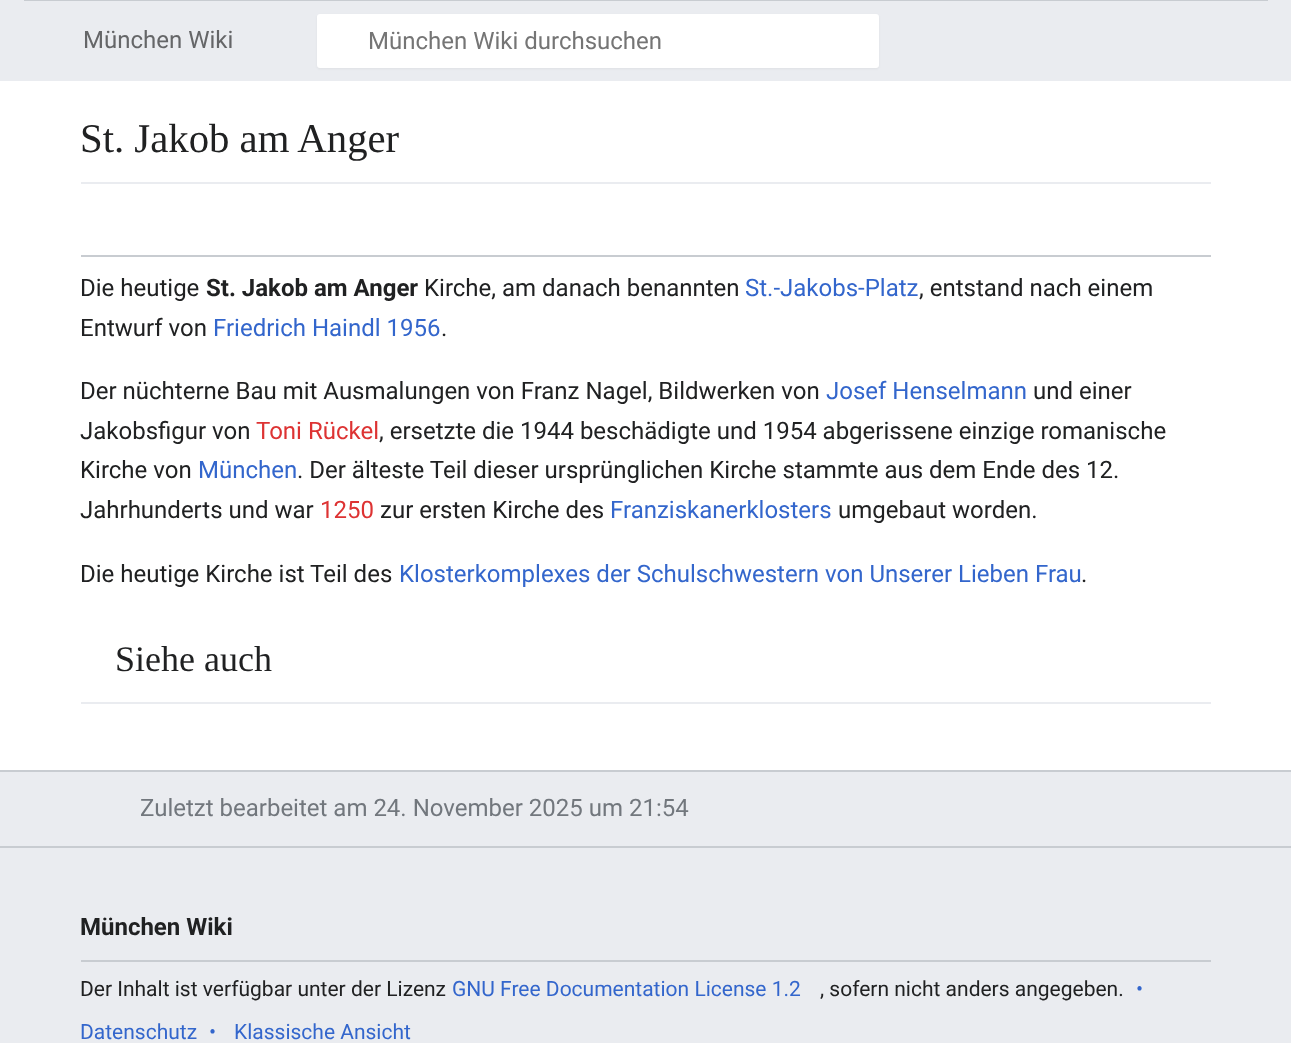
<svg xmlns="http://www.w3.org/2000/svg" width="1291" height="1043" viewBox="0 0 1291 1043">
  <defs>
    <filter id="blur1" x="-50%" y="-200%" width="200%" height="500%"><feGaussianBlur stdDeviation="1"/></filter>
  </defs>
  <rect width="100%" height="100%" fill="#eaecf0"/>
  <rect x="24" y="0" width="1244" height="1" fill="#c8ccd1"/>
  <text x="83" y="48" font-family="Roboto" font-size="24" fill="#656668">München Wiki</text>
  <rect x="317" y="15" width="562" height="54" rx="3" fill="#000000" fill-opacity="0.05" filter="url(#blur1)"/>
  <rect x="318" y="15" width="560" height="52" rx="2" fill="#ffffff" stroke="#ffffff" stroke-width="2"/>
  <text x="368" y="49" font-family="Roboto" font-size="24" fill="#757575">München Wiki durchsuchen</text>
  <rect x="0" y="81" width="1291" height="689" fill="#ffffff"/>
  <text x="80" y="152" font-family="Liberation Serif" font-size="40.75" fill="#202122">St. Jakob am Anger</text>
  <rect x="81" y="182" width="1130" height="2" fill="#eaecf0"/>
  <rect x="81" y="255" width="1130" height="2" fill="#c8ccd1"/>
  <text x="80" y="296" font-family="Roboto" font-size="24" fill="#202122">Die heutige</text>
  <text x="206" y="296" font-family="Roboto" font-size="24" font-weight="bold" fill="#202122">St. Jakob am Anger</text>
  <text x="424" y="296" font-family="Roboto" font-size="24" fill="#202122">Kirche, am danach benannten</text>
  <text x="745" y="296" font-family="Roboto" font-size="24" fill="#3366cc">St.-Jakobs-Platz</text>
  <text x="919" y="296" font-family="Roboto" font-size="24" fill="#202122">, entstand nach einem</text>
  <text x="80" y="336" font-family="Roboto" font-size="24" fill="#202122">Entwurf von</text>
  <text x="213" y="336" font-family="Roboto" font-size="24" fill="#3366cc">Friedrich Haindl 1956</text>
  <text x="441" y="336" font-family="Roboto" font-size="24" fill="#202122">.</text>
  <text x="80" y="399" font-family="Roboto" font-size="24" fill="#202122">Der nüchterne Bau mit Ausmalungen von Franz Nagel, Bildwerken von</text>
  <text x="826" y="399" font-family="Roboto" font-size="24" fill="#3366cc">Josef Henselmann</text>
  <text x="1033" y="399" font-family="Roboto" font-size="24" fill="#202122">und einer</text>
  <text x="80" y="439" font-family="Roboto" font-size="24" fill="#202122">Jakobsfigur von</text>
  <text x="256" y="439" font-family="Roboto" font-size="24" fill="#dd3333">Toni Rückel</text>
  <text x="379" y="439" font-family="Roboto" font-size="24" fill="#202122">, ersetzte die 1944 beschädigte und 1954 abgerissene einzige romanische</text>
  <text x="80" y="478" font-family="Roboto" font-size="24" fill="#202122">Kirche von</text>
  <text x="198" y="478" font-family="Roboto" font-size="24" fill="#3366cc">München</text>
  <text x="297" y="478" font-family="Roboto" font-size="24" fill="#202122">. Der älteste Teil dieser ursprünglichen Kirche stammte aus dem Ende des 12.</text>
  <text x="80" y="518" font-family="Roboto" font-size="24" fill="#202122">Jahrhunderts und war</text>
  <text x="320" y="518" font-family="Roboto" font-size="24" fill="#dd3333">1250</text>
  <text x="380" y="518" font-family="Roboto" font-size="24" fill="#202122">zur ersten Kirche des</text>
  <text x="610" y="518" font-family="Roboto" font-size="24" fill="#3366cc">Franziskanerklosters</text>
  <text x="838" y="518" font-family="Roboto" font-size="24" fill="#202122">umgebaut worden.</text>
  <text x="80" y="582" font-family="Roboto" font-size="24" fill="#202122">Die heutige Kirche ist Teil des</text>
  <text x="399" y="582" font-family="Roboto" font-size="24" fill="#3366cc">Klosterkomplexes der Schulschwestern von Unserer Lieben Frau</text>
  <text x="1081" y="582" font-family="Roboto" font-size="24" fill="#202122">.</text>
  <rect x="81" y="702" width="1130" height="2" fill="#eaecf0"/>
  <text x="115" y="671" font-family="Liberation Serif" font-size="36" fill="#202122">Siehe auch</text>
  <rect x="0" y="770" width="1291" height="2" fill="#c8ccd1"/>
  <rect x="0" y="846" width="1291" height="2" fill="#c8ccd1"/>
  <text x="140" y="816" font-family="Roboto" font-size="24" fill="#72777d">Zuletzt bearbeitet am 24. November 2025 um 21:54</text>
  <rect x="81" y="960" width="1130" height="2" fill="#c8ccd1"/>
  <text x="80" y="935" font-family="Roboto" font-size="24" font-weight="bold" fill="#202122">München Wiki</text>
  <text x="80" y="996" font-family="Roboto" font-size="21" fill="#202122">Der Inhalt ist verfügbar unter der Lizenz</text>
  <text x="452" y="996" font-family="Roboto" font-size="21" fill="#3366cc">GNU Free Documentation License 1.2</text>
  <text x="820" y="996" font-family="Roboto" font-size="21" fill="#202122">, sofern nicht anders angegeben.</text>
  <text x="1136" y="996" font-family="Roboto" font-size="21" fill="#3366cc">•</text>
  <text x="80" y="1039" font-family="Roboto" font-size="21" fill="#3366cc">Datenschutz</text>
  <text x="209" y="1039" font-family="Roboto" font-size="21" fill="#3366cc">•</text>
  <text x="234" y="1039" font-family="Roboto" font-size="21" fill="#3366cc">Klassische Ansicht</text>
</svg>
